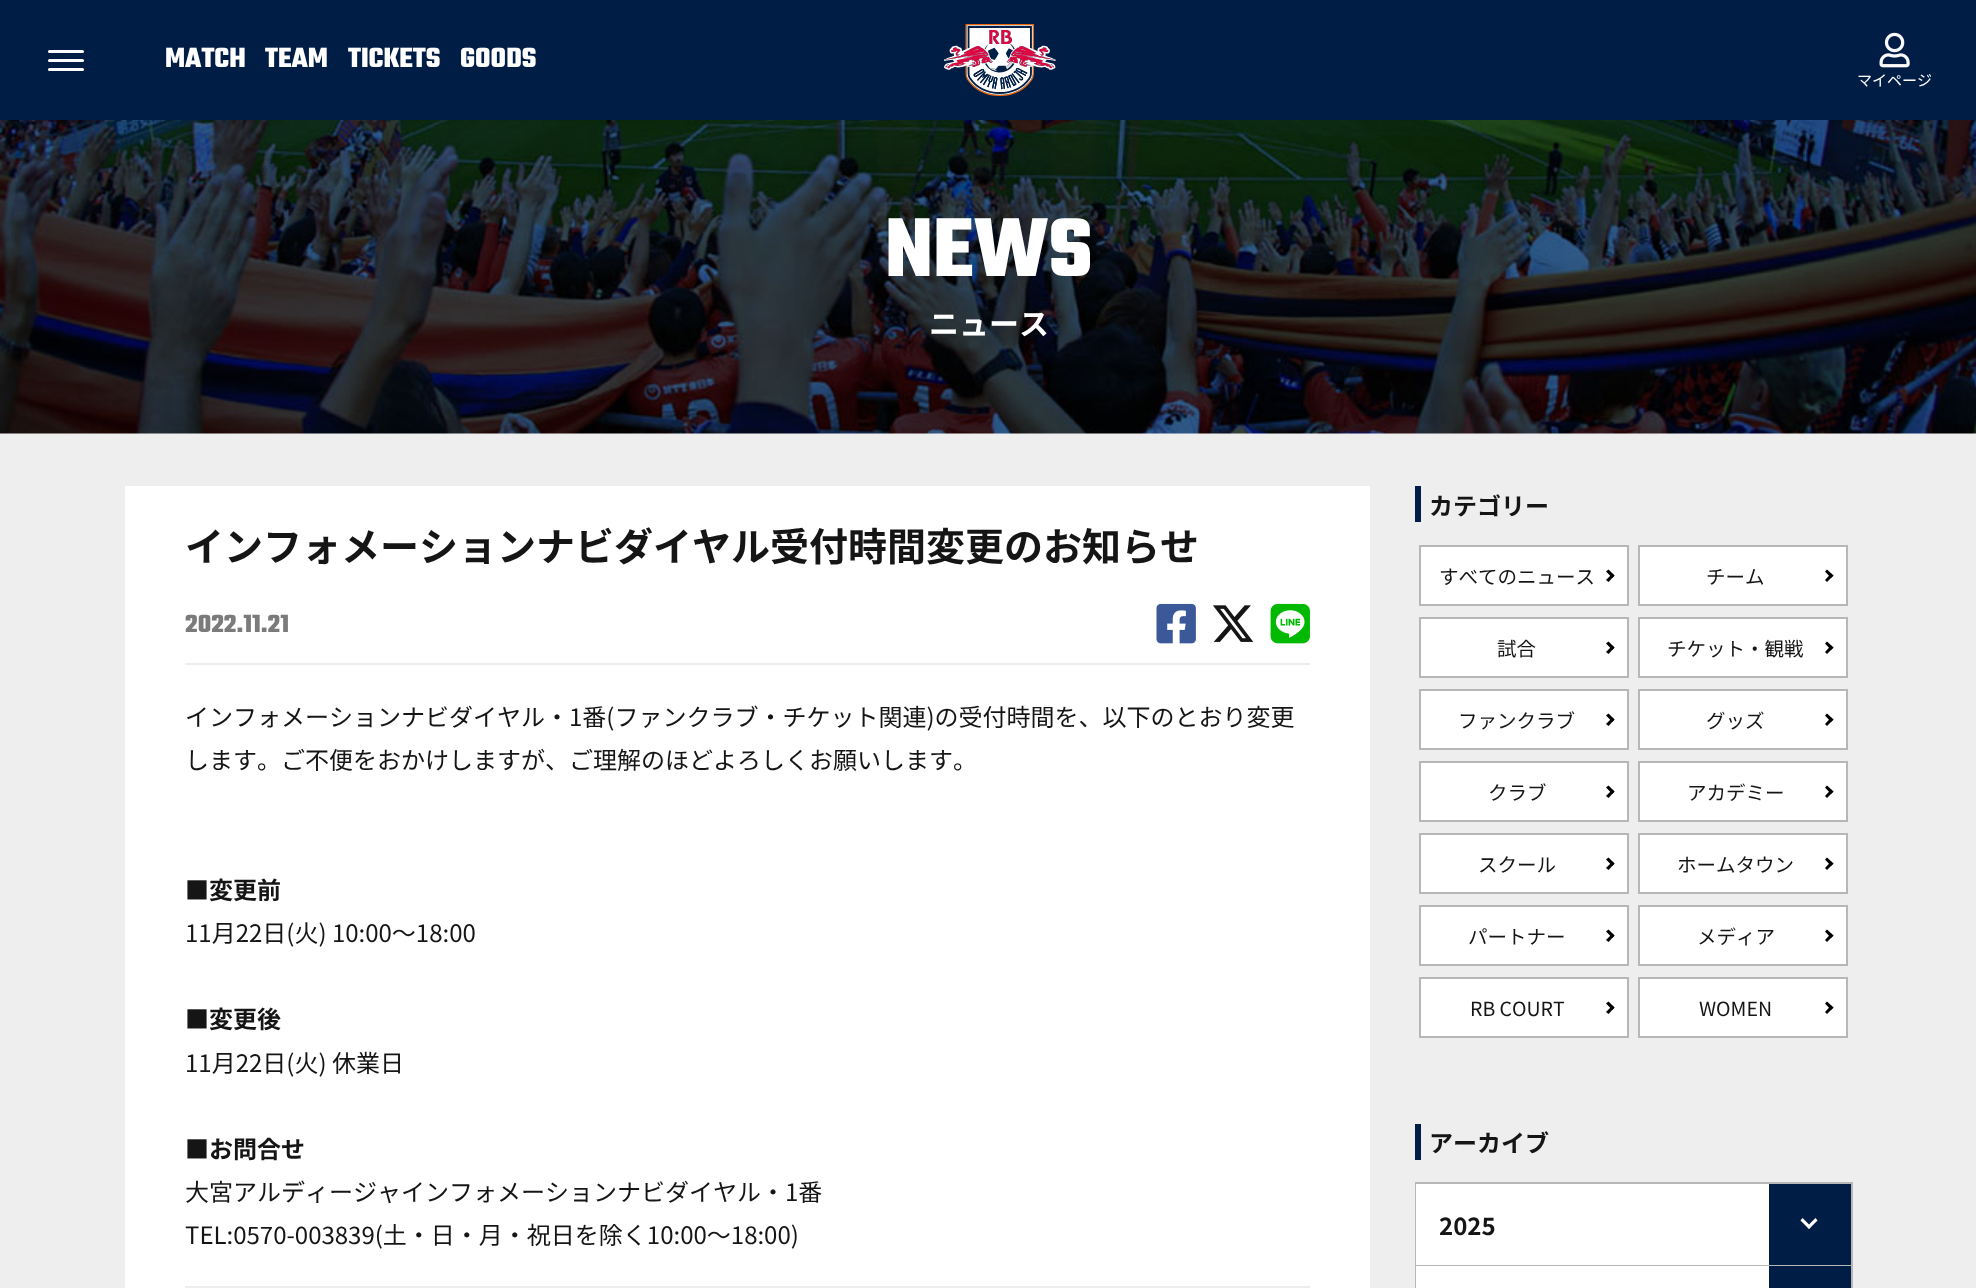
<svg xmlns="http://www.w3.org/2000/svg" width="1976" height="1288" viewBox="0 0 1976 1288">
  <style>*{font-kerning:none!important;font-variant-ligatures:none!important}</style>
  <rect width="100%" height="100%" fill="#eeeeee"/>
  <rect x="0" y="0" width="1976" height="120" fill="#001d46"/>
  <rect x="48" y="59" width="36" height="3" rx="1.5" fill="#ffffff"/>
  <rect x="48" y="50" width="36" height="3" rx="1.5" fill="#ffffff"/>
  <rect x="48" y="68" width="36" height="3" rx="1.5" fill="#ffffff"/>
  <text x="165" y="67" font-family="Teko" font-size="30" font-weight="bold" fill="#ffffff">MATCH</text>
  <text x="265" y="67" font-family="Teko" font-size="30" font-weight="bold" fill="#ffffff">TEAM</text>
  <text x="348" y="67" font-family="Teko" font-size="30" font-weight="bold" fill="#ffffff">TICKETS</text>
  <text x="460" y="67" font-family="Teko" font-size="30" font-weight="bold" fill="#ffffff">GOODS</text>
  <image x="944" y="24" width="112" height="72" href="img1.png"/>
  <image x="1879" y="32" width="31" height="36" href="img2.png"/>
  <text x="1857" y="86" font-family="Noto Sans JP" font-size="15" fill="#ffffff">マイページ</text>
  <image x="0" y="120" width="1976" height="314" href="img3.png"/>
  <text x="885" y="276" font-family="Teko" font-size="90" font-weight="bold" fill="#ffffff">NEWS</text>
  <text x="929" y="335" font-family="Noto Sans JP" font-size="30" font-weight="bold" fill="#ffffff">ニュース</text>
  <rect x="125" y="486" width="1245" height="802" fill="#ffffff"/>
  <text x="185" y="561" font-family="Noto Sans JP" font-size="39" font-weight="bold" fill="#151515">インフォメーションナビダイヤル受付時間変更のお知らせ</text>
  <rect x="185" y="663" width="1125" height="2" fill="#eeeeee"/>
  <text x="185" y="632" font-family="Teko" font-size="27" font-weight="bold" fill="#7b7b7b">2022.11.21</text>
  <image x="1156" y="603" width="40" height="41" href="img4.png"/>
  <image x="1213" y="605" width="41" height="37" href="img5.png"/>
  <image x="1270" y="603" width="40" height="41" href="img6.png"/>
  <rect x="185" y="1286" width="1125" height="2" fill="#eeeeee"/>
  <text x="185" y="726" font-family="Noto Sans JP" font-size="24" fill="#151515">インフォメーションナビダイヤル・1番(ファンクラブ・チケット関連)の受付時間を、以下のとおり変更</text>
  <text x="185" y="769" font-family="Noto Sans JP" font-size="24" fill="#151515">します。ご不便をおかけしますが、ご理解のほどよろしくお願いします</text>
  <text x="953" y="769" font-family="Noto Sans JP" font-size="24" fill="#151515">。</text>
  <text x="185" y="899" font-family="Noto Sans JP" font-size="24" font-weight="bold" fill="#151515">■変更前</text>
  <text x="185" y="942" font-family="Noto Sans JP" font-size="24" fill="#151515">11月22日(火) 10:00～18:00</text>
  <text x="185" y="1028" font-family="Noto Sans JP" font-size="24" font-weight="bold" fill="#151515">■変更後</text>
  <text x="185" y="1072" font-family="Noto Sans JP" font-size="24" fill="#151515">11月22日(火) 休業日</text>
  <text x="185" y="1158" font-family="Noto Sans JP" font-size="24" font-weight="bold" fill="#151515">■お問合せ</text>
  <text x="185" y="1201" font-family="Noto Sans JP" font-size="24" fill="#151515">大宮アルディージャインフォメーションナビダイ</text>
  <text x="713" y="1201" font-family="Noto Sans JP" font-size="24" fill="#151515">ヤル・1番</text>
  <text x="185" y="1244" font-family="Noto Sans JP" font-size="24" fill="#151515">TEL:0570-003839(土・日・月・祝日を除く10:00～18:00)</text>
  <rect x="1415" y="486" width="6" height="36" fill="#001d46"/>
  <text x="1429" y="515" font-family="Noto Sans JP" font-size="24" font-weight="bold" fill="#151515">カテゴリー</text>
  <rect x="1420" y="546" width="208" height="59" fill="#ffffff" stroke="#b7b7b7" stroke-width="2"/>
  <text x="1439" y="584" font-family="Noto Sans JP" font-size="19.5" fill="#151515">すべてのニュース</text>
  <path d="M1608.5 569.5L1614.5 575.5L1612.5 578L1606 571.5Z" fill="#000000"/>
  <path d="M1612.5 573.5L1614.5 575.5L1608.5 582L1606 580Z" fill="#000000"/>
  <rect x="1639" y="546" width="208" height="59" fill="#ffffff" stroke="#b7b7b7" stroke-width="2"/>
  <text x="1706" y="584" font-family="Noto Sans JP" font-size="19.5" fill="#151515">チーム</text>
  <path d="M1827 569.5L1833.5 575.5L1831 578L1825 571.5Z" fill="#000000"/>
  <path d="M1831 573.5L1833.5 575.5L1827 582L1825 580Z" fill="#000000"/>
  <rect x="1420" y="618" width="208" height="59" fill="#ffffff" stroke="#b7b7b7" stroke-width="2"/>
  <text x="1497" y="656" font-family="Noto Sans JP" font-size="19.5" fill="#151515">試合</text>
  <path d="M1608.5 641.5L1614.5 647.5L1612.5 650L1606 643.5Z" fill="#000000"/>
  <path d="M1612.5 645.5L1614.5 647.5L1608.5 654L1606 652Z" fill="#000000"/>
  <rect x="1639" y="618" width="208" height="59" fill="#ffffff" stroke="#b7b7b7" stroke-width="2"/>
  <text x="1667" y="656" font-family="Noto Sans JP" font-size="19.5" fill="#151515">チケット・観戦</text>
  <path d="M1827 641.5L1833.5 647.5L1831 650L1825 643.5Z" fill="#000000"/>
  <path d="M1831 645.5L1833.5 647.5L1827 654L1825 652Z" fill="#000000"/>
  <rect x="1420" y="690" width="208" height="59" fill="#ffffff" stroke="#b7b7b7" stroke-width="2"/>
  <text x="1458" y="728" font-family="Noto Sans JP" font-size="19.5" fill="#151515">ファンクラブ</text>
  <path d="M1608.5 713.5L1614.5 719.5L1612.5 722L1606 715.5Z" fill="#000000"/>
  <path d="M1612.5 717.5L1614.5 719.5L1608.5 726L1606 724Z" fill="#000000"/>
  <rect x="1639" y="690" width="208" height="59" fill="#ffffff" stroke="#b7b7b7" stroke-width="2"/>
  <text x="1706" y="728" font-family="Noto Sans JP" font-size="19.5" fill="#151515">グッズ</text>
  <path d="M1827 713.5L1833.5 719.5L1831 722L1825 715.5Z" fill="#000000"/>
  <path d="M1831 717.5L1833.5 719.5L1827 726L1825 724Z" fill="#000000"/>
  <rect x="1420" y="762" width="208" height="59" fill="#ffffff" stroke="#b7b7b7" stroke-width="2"/>
  <text x="1488" y="800" font-family="Noto Sans JP" font-size="19.5" fill="#151515">クラブ</text>
  <path d="M1608.5 785.5L1614.5 791.5L1612.5 794L1606 787.5Z" fill="#000000"/>
  <path d="M1612.5 789.5L1614.5 791.5L1608.5 798L1606 796Z" fill="#000000"/>
  <rect x="1639" y="762" width="208" height="59" fill="#ffffff" stroke="#b7b7b7" stroke-width="2"/>
  <text x="1687" y="800" font-family="Noto Sans JP" font-size="19.5" fill="#151515">アカデミー</text>
  <path d="M1827 785.5L1833.5 791.5L1831 794L1825 787.5Z" fill="#000000"/>
  <path d="M1831 789.5L1833.5 791.5L1827 798L1825 796Z" fill="#000000"/>
  <rect x="1420" y="834" width="208" height="59" fill="#ffffff" stroke="#b7b7b7" stroke-width="2"/>
  <text x="1478" y="872" font-family="Noto Sans JP" font-size="19.5" fill="#151515">スクール</text>
  <path d="M1608.5 857.5L1614.5 863.5L1612.5 866L1606 859.5Z" fill="#000000"/>
  <path d="M1612.5 861.5L1614.5 863.5L1608.5 870L1606 868Z" fill="#000000"/>
  <rect x="1639" y="834" width="208" height="59" fill="#ffffff" stroke="#b7b7b7" stroke-width="2"/>
  <text x="1677" y="872" font-family="Noto Sans JP" font-size="19.5" fill="#151515">ホームタウン</text>
  <path d="M1827 857.5L1833.5 863.5L1831 866L1825 859.5Z" fill="#000000"/>
  <path d="M1831 861.5L1833.5 863.5L1827 870L1825 868Z" fill="#000000"/>
  <rect x="1420" y="906" width="208" height="59" fill="#ffffff" stroke="#b7b7b7" stroke-width="2"/>
  <text x="1468" y="944" font-family="Noto Sans JP" font-size="19.5" fill="#151515">パートナー</text>
  <path d="M1608.5 929.5L1614.5 935.5L1612.5 938L1606 931.5Z" fill="#000000"/>
  <path d="M1612.5 933.5L1614.5 935.5L1608.5 942L1606 940Z" fill="#000000"/>
  <rect x="1639" y="906" width="208" height="59" fill="#ffffff" stroke="#b7b7b7" stroke-width="2"/>
  <text x="1697" y="944" font-family="Noto Sans JP" font-size="19.5" fill="#151515">メディア</text>
  <path d="M1827 929.5L1833.5 935.5L1831 938L1825 931.5Z" fill="#000000"/>
  <path d="M1831 933.5L1833.5 935.5L1827 942L1825 940Z" fill="#000000"/>
  <rect x="1420" y="978" width="208" height="59" fill="#ffffff" stroke="#b7b7b7" stroke-width="2"/>
  <text x="1470" y="1016" font-family="Noto Sans JP" font-size="19.5" fill="#151515">RB COURT</text>
  <path d="M1608.5 1001.5L1614.5 1007.5L1612.5 1010L1606 1003.5Z" fill="#000000"/>
  <path d="M1612.5 1005.5L1614.5 1007.5L1608.5 1014L1606 1012Z" fill="#000000"/>
  <rect x="1639" y="978" width="208" height="59" fill="#ffffff" stroke="#b7b7b7" stroke-width="2"/>
  <text x="1699" y="1016" font-family="Noto Sans JP" font-size="19.5" fill="#151515">WOMEN</text>
  <path d="M1827 1001.5L1833.5 1007.5L1831 1010L1825 1003.5Z" fill="#000000"/>
  <path d="M1831 1005.5L1833.5 1007.5L1827 1014L1825 1012Z" fill="#000000"/>
  <rect x="1415" y="1124" width="6" height="36" fill="#001d46"/>
  <text x="1429" y="1152" font-family="Noto Sans JP" font-size="24" font-weight="bold" fill="#151515">アーカイブ</text>
  <rect x="1416" y="1183" width="436" height="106" fill="none" stroke="#b7b7b7" stroke-width="2"/>
  <rect x="1416" y="1184" width="353" height="81" fill="#ffffff"/>
  <rect x="1416" y="1265" width="435" height="1" fill="#b7b7b7"/>
  <text x="1439" y="1235" font-family="Noto Sans JP" font-size="24" font-weight="bold" fill="#151515">2025</text>
  <rect x="1769" y="1184" width="82" height="81" fill="#001d46"/>
  <path d="M1817.5 1220.5L1809 1229L1807 1226.5L1815.5 1218Z" fill="#ffffff"/>
  <path d="M1811 1226.5L1809 1229L1800.5 1220.5L1802.5 1218Z" fill="#ffffff"/>
  <rect x="1416" y="1266" width="353" height="22" fill="#ffffff"/>
  <rect x="1769" y="1266" width="82" height="22" fill="#001d46"/>
</svg>
